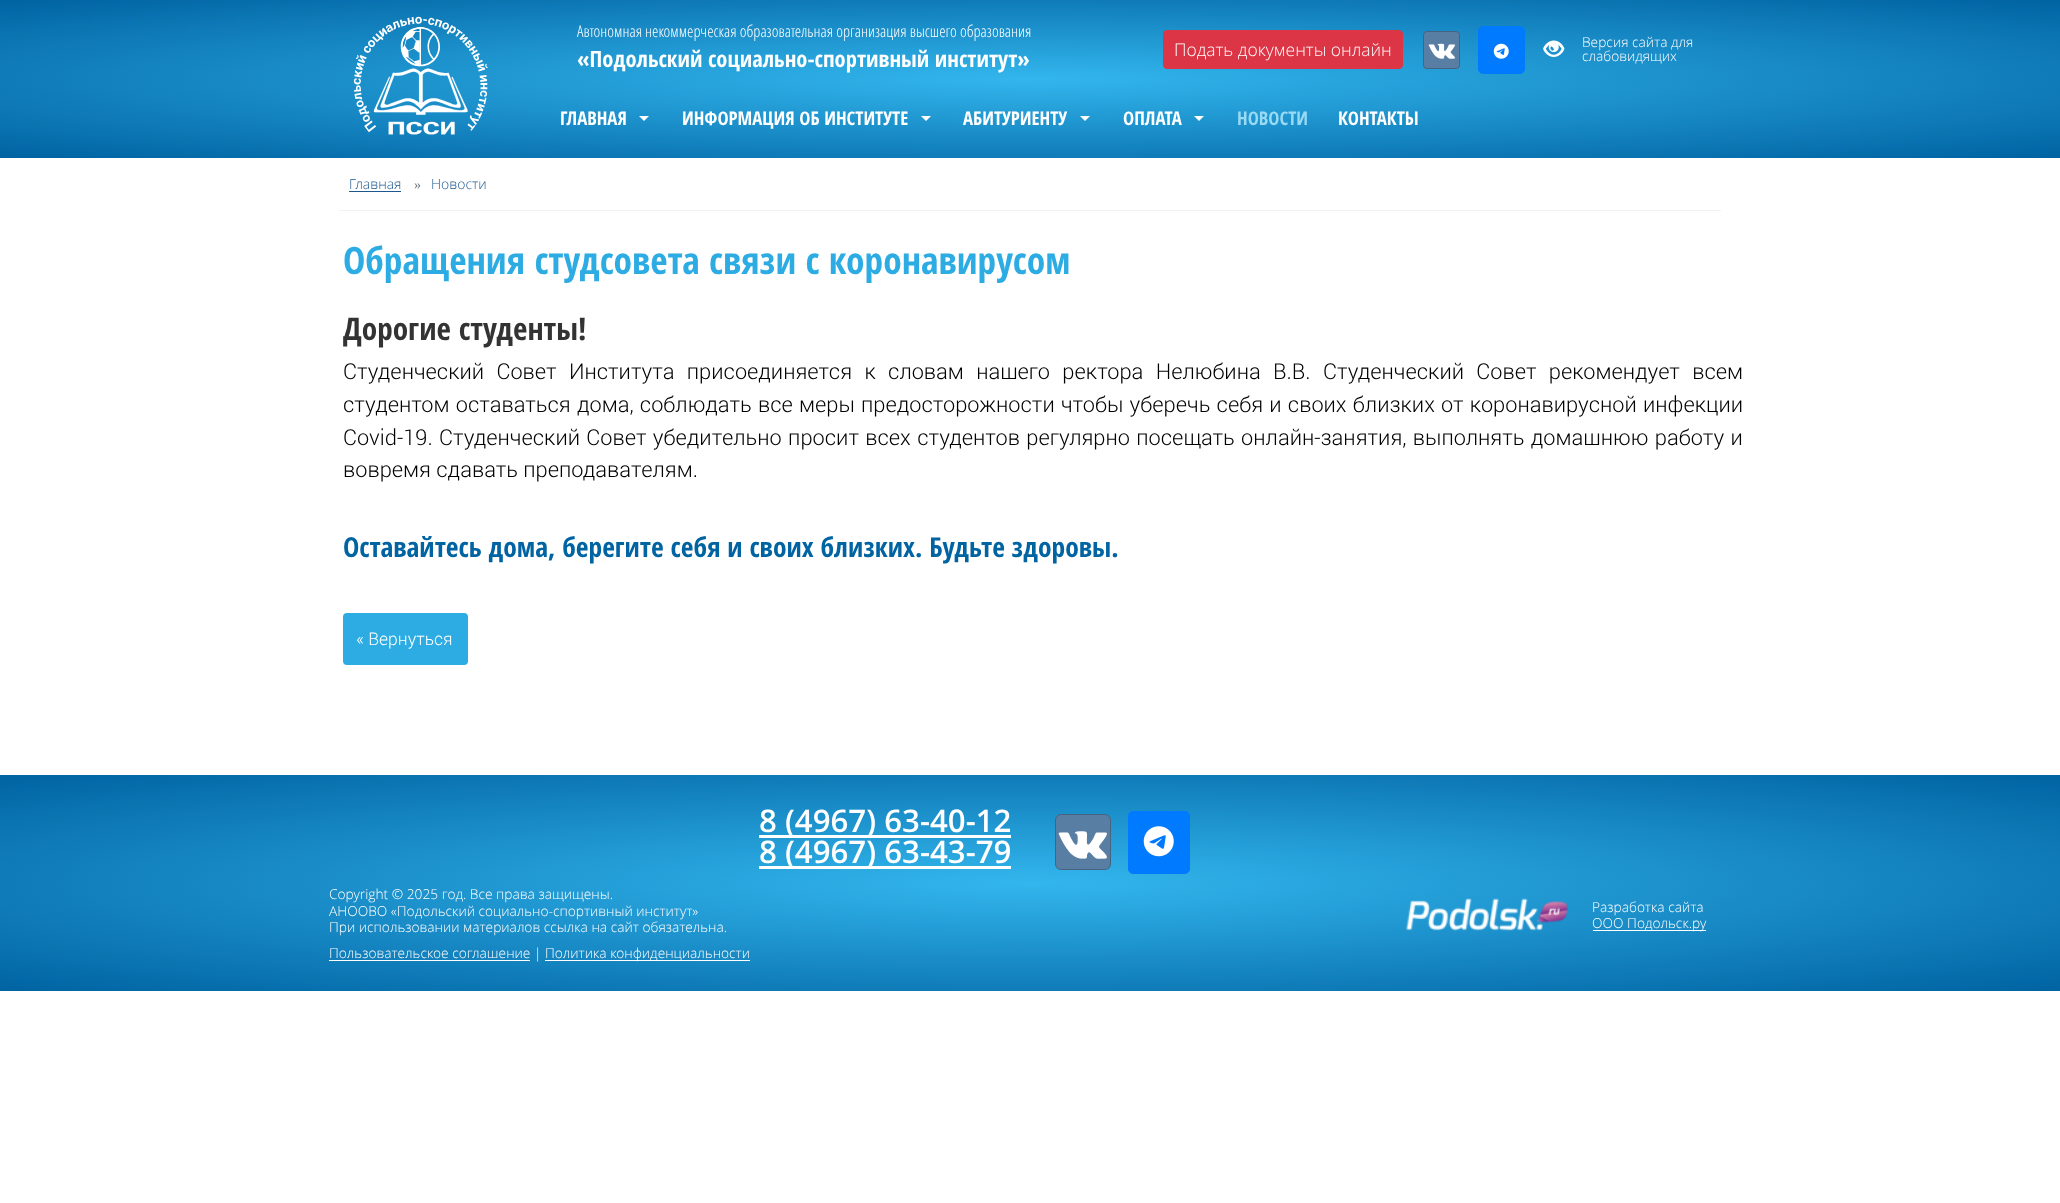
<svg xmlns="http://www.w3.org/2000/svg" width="2060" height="1203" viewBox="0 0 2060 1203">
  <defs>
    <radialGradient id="g1" gradientUnits="userSpaceOnUse" cx="0" cy="0" r="1" gradientTransform="matrix(1457 0 0 111 1030 79)"><stop offset="0" stop-color="#33b6ed"/><stop offset="1" stop-color="#0063a2"/></radialGradient>
    <radialGradient id="g2" gradientUnits="userSpaceOnUse" cx="0" cy="0" r="1" gradientTransform="matrix(1457 0 0 153 1030 883)"><stop offset="0" stop-color="#33b6ed"/><stop offset="1" stop-color="#0063a2"/></radialGradient>
  </defs>
  <rect width="100%" height="100%" fill="#ffffff"/>
  <rect x="0" y="0" width="2060" height="158" fill="url(#g1)"/>
  <image x="353" y="16" width="135" height="119" href="img1.png"/>
  <text x="577" y="37" font-family="'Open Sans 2'" font-size="16.25" font-weight="300" fill="#ffffff">Автономная некоммерческая образовательная организация высшего образования</text>
  <text x="577" y="67" font-family="Open Sans Condensed" font-size="22.5" font-weight="bold" fill="#ffffff">«Подольский социально-спортивный институт»</text>
  <rect x="1163.5" y="30.5" width="239" height="38" rx="3.5" fill="#dc3545" stroke="#dc3545"/>
  <text x="1174" y="56" font-family="Open Sans" font-size="17.5" font-weight="300" fill="#ffffff">Подать документы онлайн</text>
  <rect x="1423" y="31" width="37" height="38" rx="4" fill="#587ea3"/>
  <rect x="1423.5" y="31.5" width="36" height="37" rx="3.5" fill="none" stroke="#000000" stroke-opacity="0.2"/>
  <image x="1428" y="43" width="27" height="16" href="img2.png"/>
  <rect x="1478.5" y="26.5" width="46" height="47" rx="4.5" fill="#007bff" stroke="#007bff"/>
  <image x="1493" y="43" width="16" height="16" href="img3.png"/>
  <image x="1543" y="40" width="22" height="17" href="img4.png"/>
  <text x="1582" y="47" font-family="Open Sans" font-size="13.75" font-weight="300" fill="#ffffff">Версия сайта для</text>
  <text x="1582" y="61" font-family="Open Sans" font-size="13.75" font-weight="300" fill="#ffffff">слабовидящих</text>
  <text x="560" y="125" font-family="Open Sans Condensed" font-size="18.75" font-weight="bold" fill="#ffffff">ГЛАВНАЯ</text>
  <path d="M639 116H649L644 121Z" fill="#ffffff"/>
  <text x="682" y="125" font-family="Open Sans Condensed" font-size="18.75" font-weight="bold" fill="#ffffff">ИНФОРМАЦИЯ ОБ ИНСТИТУТЕ</text>
  <path d="M921 116H931L926 121Z" fill="#ffffff"/>
  <text x="963" y="125" font-family="Open Sans Condensed" font-size="18.75" font-weight="bold" fill="#ffffff">АБИТУРИЕНТУ</text>
  <path d="M1080 116H1090L1085 121Z" fill="#ffffff"/>
  <text x="1123" y="125" font-family="Open Sans Condensed" font-size="18.75" font-weight="bold" fill="#ffffff">ОПЛАТА</text>
  <path d="M1194 116H1204L1199 121Z" fill="#ffffff"/>
  <text x="1237" y="125" font-family="Open Sans Condensed" font-size="18.75" font-weight="bold" fill="#98d9f4">НОВОСТИ</text>
  <text x="1338" y="125" font-family="Open Sans Condensed" font-size="18.75" font-weight="bold" fill="#ffffff">КОНТАКТЫ</text>
  <rect x="339" y="210" width="1382" height="1" fill="#f1f1f1"/>
  <text x="349" y="189" font-family="Open Sans" font-size="14" font-weight="300" fill="#1a5891">Главная</text>
  <rect x="349" y="191" width="52" height="1" fill="#1a5891"/>
  <text x="414" y="189" font-family="Liberation Serif" font-size="14" fill="#6c757d">»</text>
  <text x="431" y="189" font-family="Open Sans" font-size="14" font-weight="300" fill="#1a5891">Новости</text>
  <text x="343" y="274" font-family="Open Sans Condensed" font-size="37.5" font-weight="bold" fill="#2dace4">Обращения студсовета связи с коронавирусом</text>
  <text x="343" y="340" font-family="Open Sans Condensed" font-size="31.25" font-weight="bold" fill="#333333">Дорогие студенты!</text>
  <text x="343" y="379" word-spacing="7" font-family="Roboto" font-size="21.88" font-weight="300" fill="#000000">Студенческий Совет Института присоединяется к словам нашего ректора Нелюбина В.В. Студенческий Совет рекомендует всем</text>
  <text x="343" y="412" word-spacing="0.9" font-family="Roboto" font-size="21.88" font-weight="300" fill="#000000">студентом оставаться дома, соблюдать все меры предосторожности чтобы уберечь себя и своих близких от коронавирусной инфекции</text>
  <text x="343" y="445" word-spacing="1" font-family="Roboto" font-size="21.88" font-weight="300" fill="#000000">Covid-19. Студенческий Совет убедительно просит всех студентов регулярно посещать онлайн-занятия, выполнять домашнюю работу и</text>
  <text x="343" y="477" font-family="Roboto" font-size="21.88" font-weight="300" fill="#000000">вовремя сдавать преподавателям.</text>
  <text x="343" y="557" font-family="Open Sans Condensed" font-size="27.5" font-weight="bold" fill="#0063a2">Оставайтесь дома, берегите себя и своих близких. Будьте здоровы.</text>
  <rect x="343" y="613" width="125" height="52" rx="4" fill="#2dace4"/>
  <text x="356" y="645" font-family="Roboto" font-size="17.5" font-weight="300" fill="#ffffff">« Вернуться</text>
  <rect x="0" y="775" width="2060" height="216" fill="url(#g2)"/>
  <rect x="759" y="835" width="252" height="3" fill="#ffffff"/>
  <text x="759" y="832" font-family="Open Sans" font-size="31.25" font-weight="600" fill="#ffffff">8 (4967) 63-40-12</text>
  <rect x="759" y="866" width="252" height="3" fill="#ffffff"/>
  <text x="759" y="863" font-family="Open Sans" font-size="31.25" font-weight="600" fill="#ffffff">8 (4967) 63-43-79</text>
  <rect x="1055" y="814" width="56" height="56" rx="6" fill="#587ea3"/>
  <rect x="1055.5" y="814.5" width="55" height="55" rx="5.5" fill="none" stroke="#000000" stroke-opacity="0.2"/>
  <image x="1058" y="831" width="49" height="28" href="img5.png"/>
  <rect x="1128.5" y="811.5" width="61" height="62" rx="4.5" fill="#007bff" stroke="#007bff"/>
  <image x="1143" y="826" width="31" height="31" href="img6.png"/>
  <text x="329" y="899" font-family="Open Sans" font-size="13.75" font-weight="300" fill="#ffffff">Copyright © 2025 год. Все права защищены.</text>
  <text x="329" y="916" font-family="Open Sans" font-size="13.75" font-weight="300" fill="#ffffff">АНОOВО «Подольский социально-спортивный институт»</text>
  <text x="329" y="932" font-family="Open Sans" font-size="13.75" font-weight="300" fill="#ffffff">При использовании материалов ссылка на сайт обязательна.</text>
  <rect x="329" y="960" width="201" height="1" fill="#ffffff"/>
  <text x="329" y="958" font-family="Open Sans" font-size="13.75" font-weight="300" fill="#ffffff">Пользовательское соглашение |</text>
  <rect x="545" y="960" width="205" height="1" fill="#ffffff"/>
  <text x="545" y="958" font-family="Open Sans" font-size="13.75" font-weight="300" fill="#ffffff">Политика конфиденциальности</text>
  <image x="1406" y="898" width="162" height="33" href="img7.png"/>
  <text x="1592" y="912" font-family="Open Sans" font-size="13.75" font-weight="300" fill="#ffffff">Разработка сайта</text>
  <rect x="1593" y="930" width="113" height="1" fill="#ffffff"/>
  <text x="1592" y="928" font-family="Open Sans" font-size="13.75" font-weight="300" fill="#ffffff">ООО Подольск.ру</text>
</svg>
